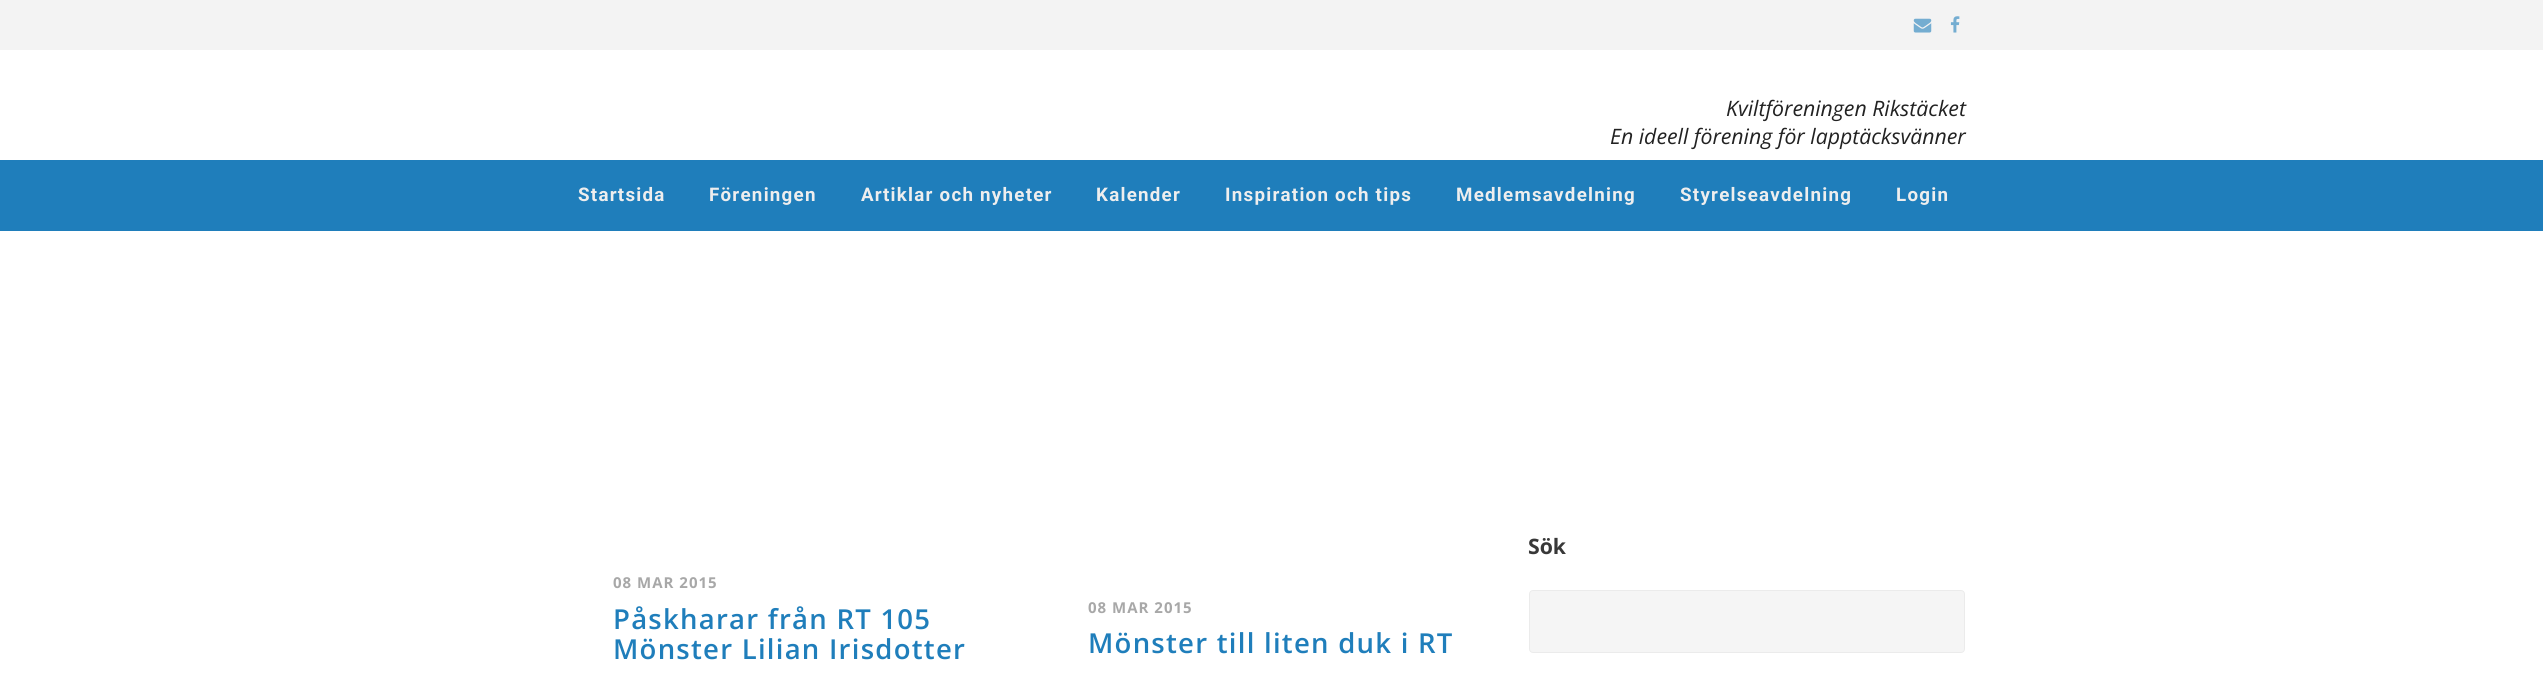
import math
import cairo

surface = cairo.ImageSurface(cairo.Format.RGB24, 2543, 676)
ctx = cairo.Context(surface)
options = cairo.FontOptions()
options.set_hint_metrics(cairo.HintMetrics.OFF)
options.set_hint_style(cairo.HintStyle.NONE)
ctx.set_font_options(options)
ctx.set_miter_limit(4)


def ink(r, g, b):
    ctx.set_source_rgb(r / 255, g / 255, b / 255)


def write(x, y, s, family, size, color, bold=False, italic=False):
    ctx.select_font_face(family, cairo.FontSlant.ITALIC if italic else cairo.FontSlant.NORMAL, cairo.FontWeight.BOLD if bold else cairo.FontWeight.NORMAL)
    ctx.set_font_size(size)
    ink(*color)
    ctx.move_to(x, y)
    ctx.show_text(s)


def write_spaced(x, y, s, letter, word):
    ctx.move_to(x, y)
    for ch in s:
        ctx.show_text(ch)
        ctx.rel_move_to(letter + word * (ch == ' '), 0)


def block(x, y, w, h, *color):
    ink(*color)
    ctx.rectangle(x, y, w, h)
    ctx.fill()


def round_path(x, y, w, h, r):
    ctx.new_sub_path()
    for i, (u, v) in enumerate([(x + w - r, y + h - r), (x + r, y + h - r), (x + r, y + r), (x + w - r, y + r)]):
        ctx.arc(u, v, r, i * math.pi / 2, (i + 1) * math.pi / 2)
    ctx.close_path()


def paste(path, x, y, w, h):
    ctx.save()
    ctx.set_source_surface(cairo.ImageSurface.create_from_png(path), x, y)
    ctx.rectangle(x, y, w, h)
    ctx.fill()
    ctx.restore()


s1 = dict(family="Open Sans", size=21.25, color=(34, 34, 34), italic=True)
s2 = dict(family="Open Sans", size=21.25, color=(56, 56, 56), bold=True)

ink(255, 255, 255)
ctx.paint()
block(0, 0, 2543, 50, 243, 243, 243)
paste("pic1.png", 1913, 18, 19, 15)
paste("pic2.png", 1950, 16, 10, 17)
write(1726, 116, "Kviltföreningen Rikstäcket", **s1)
write(1610, 144, "En ideell förening för lapptäcksvänner", **s1)
block(0, 160, 2543, 71, 31, 126, 187)
ctx.select_font_face("Roboto", cairo.FontSlant.NORMAL, cairo.FontWeight.BOLD)
ctx.set_font_size(18.75)
ink(238, 238, 238)
write_spaced(578, 201, "Startsida", 1.25, 0)
write_spaced(709, 201, "Föreningen", 1.25, 0)
write_spaced(861, 201, "Artiklar och nyheter", 1.25, 0)
write_spaced(1096, 201, "Kalender", 1.25, 0)
write_spaced(1225, 201, "Inspiration och tips", 1.25, 0)
write_spaced(1456, 201, "Medlemsavdelning", 1.25, 0)
write_spaced(1680, 201, "Styrelseavdelning", 1.25, 0)
write_spaced(1896, 201, "Login", 1.25, 0)
write(1528, 554, "Sök", **s2)
ink(245, 245, 245)
round_path(1529.5, 590.5, 435, 62, 3.5)
ctx.fill_preserve()
ink(235, 235, 235)
ctx.set_line_width(1)
ctx.stroke()
ctx.set_font_size(15)
ink(168, 168, 168)
write_spaced(613, 588, "08 MAR 2015", 1, 0)
ctx.select_font_face("Open Sans SemiBold")
ctx.set_font_size(27.5)
ink(31, 126, 187)
write_spaced(613, 629, "Påskharar från RT 105", 1.25, 0)
write_spaced(613, 659, "Mönster Lilian Irisdotter", 1.25, 0)
ctx.select_font_face("Open Sans", cairo.FontSlant.NORMAL, cairo.FontWeight.BOLD)
ctx.set_font_size(15)
ink(168, 168, 168)
write_spaced(1088, 613, "08 MAR 2015", 1, 0)
ctx.select_font_face("Open Sans SemiBold")
ctx.set_font_size(27.5)
ink(31, 126, 187)
write_spaced(1088, 653, "Mönster till liten duk i RT", 1.25, 0)
surface.write_to_png("screenshot.png")
